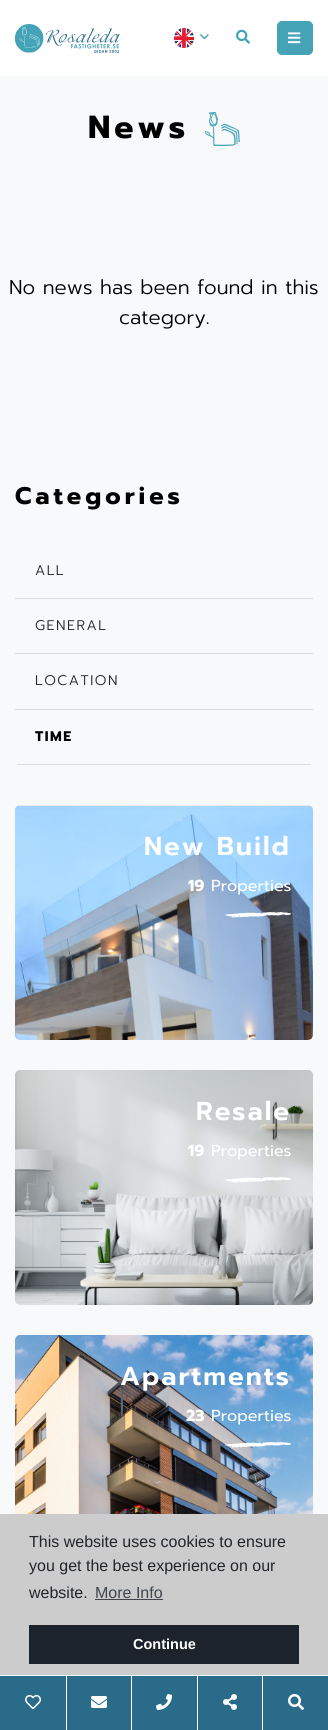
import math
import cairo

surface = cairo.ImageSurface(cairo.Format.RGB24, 328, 1730)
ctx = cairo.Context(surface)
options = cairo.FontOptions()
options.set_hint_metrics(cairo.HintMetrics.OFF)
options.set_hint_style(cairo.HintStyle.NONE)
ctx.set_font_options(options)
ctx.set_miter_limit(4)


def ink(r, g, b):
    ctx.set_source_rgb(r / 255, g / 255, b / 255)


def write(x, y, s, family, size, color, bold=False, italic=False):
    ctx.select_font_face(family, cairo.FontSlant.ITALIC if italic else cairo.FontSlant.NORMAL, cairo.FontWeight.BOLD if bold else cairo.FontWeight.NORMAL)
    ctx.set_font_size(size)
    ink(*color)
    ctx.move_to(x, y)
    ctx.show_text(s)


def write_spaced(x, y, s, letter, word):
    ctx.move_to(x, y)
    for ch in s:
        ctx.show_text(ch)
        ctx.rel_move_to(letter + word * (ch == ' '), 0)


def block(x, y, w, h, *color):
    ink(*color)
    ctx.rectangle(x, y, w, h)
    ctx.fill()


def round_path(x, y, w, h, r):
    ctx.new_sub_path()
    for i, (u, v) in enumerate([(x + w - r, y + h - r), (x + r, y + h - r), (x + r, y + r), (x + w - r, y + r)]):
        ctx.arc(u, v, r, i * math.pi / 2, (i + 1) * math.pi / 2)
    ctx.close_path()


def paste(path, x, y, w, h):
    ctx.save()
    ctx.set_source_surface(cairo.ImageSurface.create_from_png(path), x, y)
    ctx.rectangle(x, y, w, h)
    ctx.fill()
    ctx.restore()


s1 = dict(family="Prompt Light", size=20, color=(0, 0, 0))
s2 = dict(family="Prompt", size=16, color=(255, 255, 255), bold=True)
s3 = dict(family="Prompt", size=16, color=(255, 255, 255))
s4 = dict(family="Liberation Sans", size=16, color=(33, 37, 41))
s5 = dict(family="Liberation Sans", size=16, color=(63, 69, 76))
s6 = dict(family="Liberation Sans", size=14.5, color=(255, 255, 255), bold=True)

ink(255, 255, 255)
ctx.paint()
paste("pic1.png", 15, 24, 107, 29)
paste("pic2.png", 174, 28, 20, 20)
paste("pic3.png", 200, 34, 9, 6)
paste("pic4.png", 236, 29, 14, 15)
ink(69, 163, 183)
round_path(277.5, 21.5, 35, 33, 4.5)
ctx.fill_preserve()
ctx.set_line_width(1)
ctx.stroke()
paste("pic5.png", 288, 32, 13, 12)
block(0, 76, 328, 1438, 248, 249, 250)
ctx.select_font_face("Prompt", cairo.FontSlant.NORMAL, cairo.FontWeight.BOLD)
ctx.set_font_size(32)
ink(0, 0, 0)
write_spaced(88, 138, "News", 4, 0)
paste("pic6.png", 205, 112, 35, 34)
write(9, 294, "No news has been found in this", **s1)
write(119, 324, "category.", **s1)
ctx.select_font_face("Prompt", cairo.FontSlant.NORMAL, cairo.FontWeight.BOLD)
ctx.set_font_size(24)
write_spaced(15, 504, "Categories", 4, 0)
block(15, 598, 298, 1, 221, 221, 221)
ctx.select_font_face("Prompt Light")
ctx.set_font_size(14)
ink(33, 37, 41)
write_spaced(35, 575, "ALL", 1.5, 0)
block(15, 653, 298, 1, 221, 221, 221)
ink(33, 37, 41)
write_spaced(35, 630, "GENERAL", 1.5, 0)
block(15, 709, 298, 1, 221, 221, 221)
ink(33, 37, 41)
write_spaced(35, 685, "LOCATION", 1.5, 0)
block(17, 764, 294, 1, 221, 221, 221)
ctx.select_font_face("Prompt", cairo.FontSlant.NORMAL, cairo.FontWeight.BOLD)
ink(0, 0, 0)
write_spaced(35, 741, "TIME", 1.5, 0)
paste("pic7.png", 15, 805, 298, 235)
ctx.select_font_face("Prompt SemiBold")
ctx.set_font_size(26)
ink(255, 255, 255)
write_spaced(144, 855, "New Build", 2, 0)
write(188, 891, "19", **s2)
write(211, 891, "Properties", **s3)
paste("pic8.png", 225, 912, 66, 6)
paste("pic9.png", 15, 1070, 298, 235)
ctx.select_font_face("Prompt SemiBold")
ctx.set_font_size(26)
write_spaced(196, 1120, "Resale", 2, 0)
write(188, 1156, "19", **s2)
write(211, 1156, "Properties", **s3)
paste("pic10.png", 225, 1177, 66, 6)
paste("pic11.png", 15, 1335, 298, 179)
ctx.select_font_face("Prompt SemiBold")
ctx.set_font_size(26)
write_spaced(120, 1385, "Apartments", 2, 0)
write(186, 1421, "23", **s2)
write(211, 1421, "Properties", **s3)
paste("pic12.png", 225, 1442, 66, 6)
block(0, 1514, 328, 161, 204, 204, 204)
write(29, 1547, "This website uses cookies to ensure", **s4)
write(29, 1571, "you get the best experience on our", **s4)
write(29, 1598, "website.", **s4)
write(95, 1598, "More Info", **s5)
block(95, 1599, 68, 1, 63, 69, 76)
block(29, 1625, 270, 39, 28, 35, 44)
write(133, 1649, "Continue", **s6)
block(0, 1676, 328, 54, 42, 107, 138)
paste("pic13.png", 25, 1695, 16, 14)
block(66, 1676, 1, 54, 255, 255, 255)
paste("pic14.png", 91, 1696, 16, 12)
block(131, 1676, 1, 54, 255, 255, 255)
paste("pic15.png", 156, 1694, 16, 16)
block(197, 1676, 1, 54, 255, 255, 255)
paste("pic16.png", 223, 1694, 14, 16)
block(262, 1676, 1, 54, 255, 255, 255)
paste("pic17.png", 288, 1694, 16, 16)
surface.write_to_png("screenshot.png")
